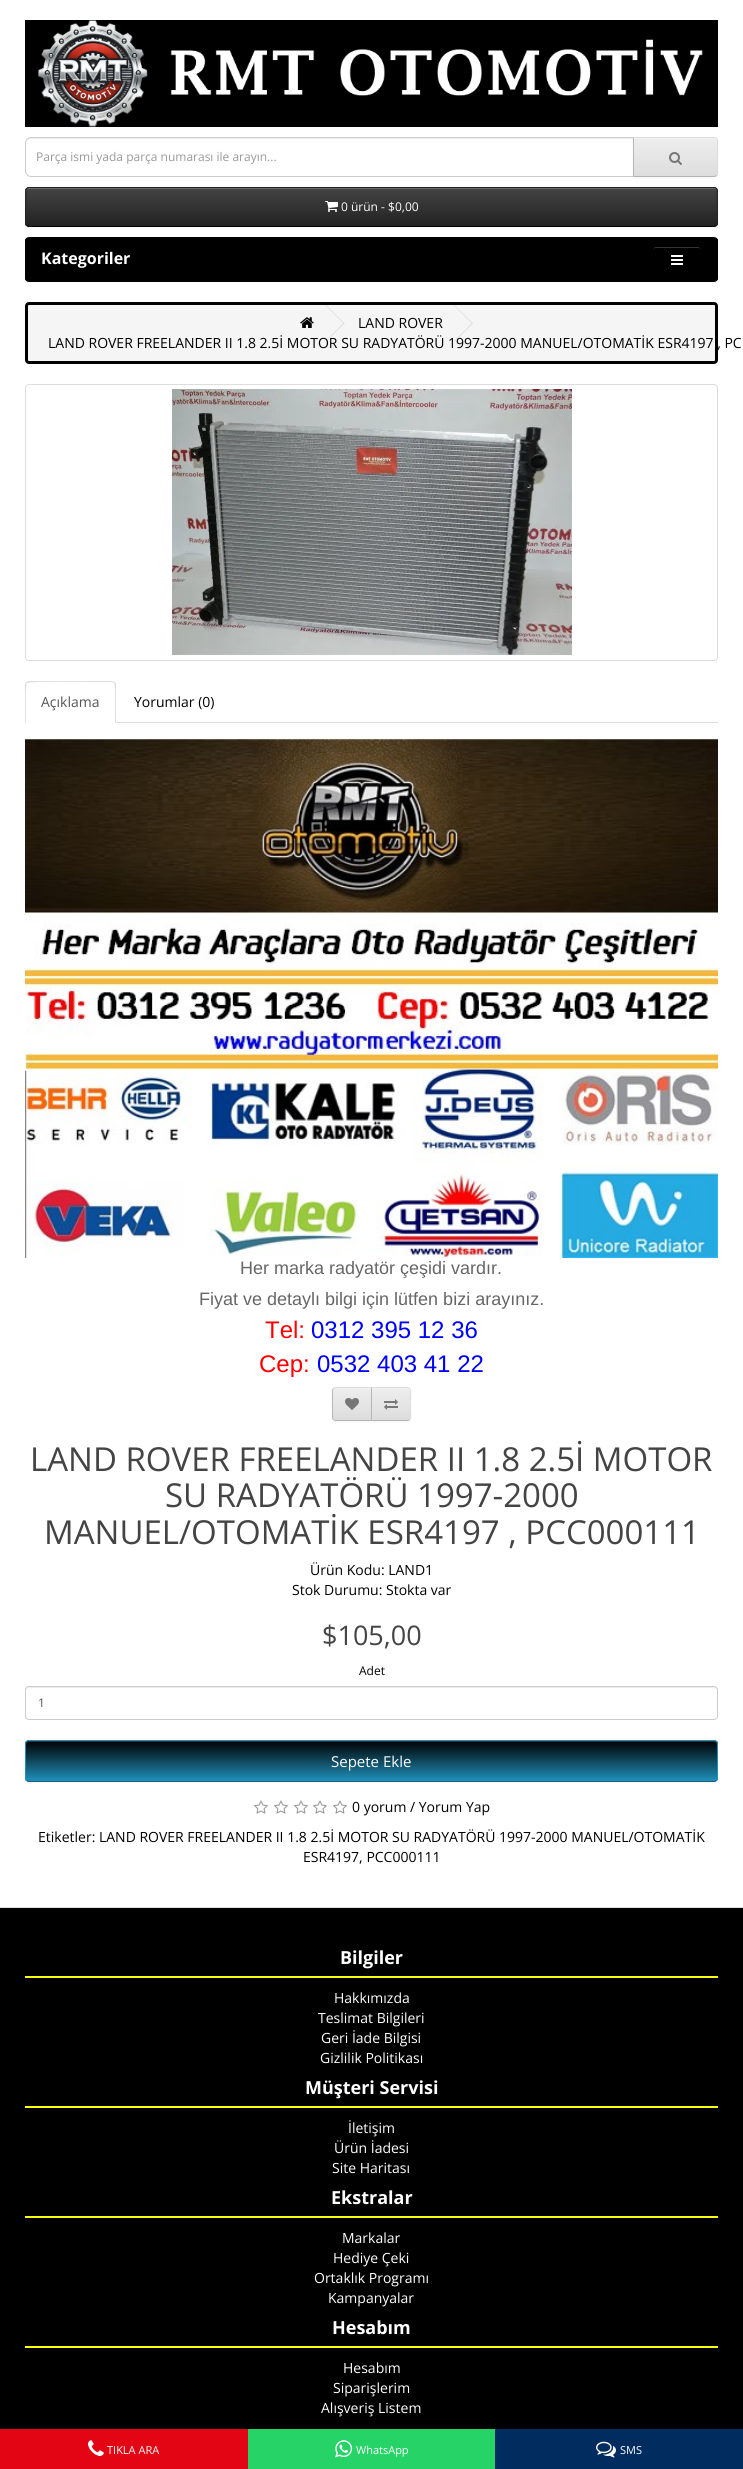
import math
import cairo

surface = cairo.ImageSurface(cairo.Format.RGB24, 743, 2469)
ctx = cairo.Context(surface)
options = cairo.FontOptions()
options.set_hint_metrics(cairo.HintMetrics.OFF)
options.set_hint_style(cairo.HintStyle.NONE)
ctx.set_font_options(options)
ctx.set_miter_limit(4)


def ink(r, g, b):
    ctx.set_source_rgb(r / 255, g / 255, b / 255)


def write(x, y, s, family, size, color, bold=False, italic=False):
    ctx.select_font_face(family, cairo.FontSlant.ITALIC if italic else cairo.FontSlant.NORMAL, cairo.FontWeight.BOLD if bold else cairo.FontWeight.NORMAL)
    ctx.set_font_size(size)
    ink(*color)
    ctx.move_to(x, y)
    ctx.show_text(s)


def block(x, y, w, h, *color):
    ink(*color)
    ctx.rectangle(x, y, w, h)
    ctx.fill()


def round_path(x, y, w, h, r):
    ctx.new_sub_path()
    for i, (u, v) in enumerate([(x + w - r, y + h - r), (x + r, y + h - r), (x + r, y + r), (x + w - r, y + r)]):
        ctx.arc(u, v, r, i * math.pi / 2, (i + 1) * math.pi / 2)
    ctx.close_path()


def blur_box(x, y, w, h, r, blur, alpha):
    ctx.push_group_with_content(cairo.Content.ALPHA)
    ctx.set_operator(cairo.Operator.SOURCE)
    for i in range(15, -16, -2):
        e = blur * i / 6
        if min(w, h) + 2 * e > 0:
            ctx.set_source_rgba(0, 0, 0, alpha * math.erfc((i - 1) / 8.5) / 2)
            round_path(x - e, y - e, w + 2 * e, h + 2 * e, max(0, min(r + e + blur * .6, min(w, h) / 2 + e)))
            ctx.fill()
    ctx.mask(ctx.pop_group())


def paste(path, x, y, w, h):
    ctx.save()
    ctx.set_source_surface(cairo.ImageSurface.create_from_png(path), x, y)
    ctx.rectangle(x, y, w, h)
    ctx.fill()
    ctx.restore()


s1 = dict(family="Open Sans", size=12, color=(153, 153, 153))
s2 = dict(family="Open Sans", size=12, color=(255, 255, 255))
s3 = dict(family="Open Sans", size=16, color=(255, 255, 255), bold=True)
s4 = dict(family="Open Sans", size=14, color=(0, 0, 0))
s5 = dict(family="Open Sans", size=14, color=(85, 85, 85))
s6 = dict(family="Liberation Sans", size=18, color=(102, 102, 102))
s7 = dict(family="Liberation Sans", size=24, color=(255, 0, 0))
s8 = dict(family="Liberation Sans", size=24, color=(0, 0, 255))
s9 = dict(family="Open Sans", size=33, color=(68, 68, 68))
s10 = dict(family="Open Sans", size=27, color=(68, 68, 68))
s11 = dict(family="Open Sans", size=12, color=(0, 0, 0))
s12 = dict(family="Open Sans", size=12, color=(85, 85, 85))
s13 = dict(family="Open Sans", size=15, color=(255, 255, 255))
s14 = dict(family="Open Sans", size=18, color=(255, 255, 255), bold=True)
s15 = dict(family="Open Sans", size=14, color=(255, 255, 255))
s16 = dict(family="Open Sans", size=11, color=(255, 255, 255))

ink(255, 255, 255)
ctx.paint()
paste("pic1.png", 25, 20, 693, 107)
ink(236, 236, 236)
ctx.new_path()
ctx.move_to(31, 139)
ctx.line_to(633, 139)
ctx.line_to(633, 138)
ctx.line_to(31, 138)
ctx.curve_to(28, 138, 26, 141, 26, 144)
ctx.curve_to(26, 141, 28, 139, 31, 139)
ctx.close_path()
ctx.fill()
ctx.new_path()
ctx.move_to(31, 137.5)
ctx.line_to(633.5, 137.5)
ctx.line_to(633.5, 176.5)
ctx.line_to(31, 176.5)
ctx.curve_to(28, 176.5, 25.5, 174, 25.5, 171)
ctx.line_to(25.5, 143)
ctx.curve_to(25.5, 140, 28, 137.5, 31, 137.5)
ctx.close_path()
ink(204, 204, 204)
ctx.set_line_width(1)
ctx.stroke()
write(36, 161, "Parça ismi yada parça numarası ile arayın...", **s1)
ink(0, 0, 0)
blur_box(633, 138, 85, 40, 4, 1, 0.05)
ink(231, 231, 231)
ctx.new_path()
ctx.move_to(633, 137)
ctx.line_to(714, 137)
ctx.curve_to(716, 137, 718, 139, 718, 141)
ctx.line_to(718, 173)
ctx.curve_to(718, 175, 716, 177, 714, 177)
ctx.line_to(633, 177)
ctx.close_path()
ctx.fill()
ctx.save()
ctx.new_path()
ctx.move_to(633, 137)
ctx.line_to(714, 137)
ctx.curve_to(716, 137, 718, 139, 718, 141)
ctx.line_to(718, 173)
ctx.curve_to(718, 175, 716, 177, 714, 177)
ctx.line_to(633, 177)
ctx.close_path()
ctx.clip()
gradient = cairo.LinearGradient(676, 138, 676, 176)
gradient.add_color_stop_rgba(0, 0.933, 0.933, 0.933, 1)
gradient.add_color_stop_rgba(1, 0.867, 0.867, 0.867, 1)
ctx.set_source(gradient)
ctx.rectangle(634, 138, 84, 38)
ctx.fill()
ctx.restore()
ink(241, 241, 241)
ctx.new_path()
ctx.move_to(634, 139)
ctx.line_to(714, 139)
ctx.curve_to(716, 139, 717, 140, 717, 142)
ctx.line_to(717, 141)
ctx.curve_to(717, 139, 716, 138, 714, 138)
ctx.line_to(634, 138)
ctx.close_path()
ctx.fill()
ink(221, 221, 221)
ctx.new_path()
ctx.move_to(633, 137)
ctx.line_to(634, 138)
ctx.line_to(715, 138)
ctx.line_to(716, 139)
ctx.line_to(717, 138)
ctx.line_to(714, 137)
ctx.close_path()
ctx.fill()
ctx.new_path()
ctx.move_to(718, 173)
ctx.line_to(718, 141)
ctx.curve_to(718, 140, 717.5, 139, 717, 138)
ctx.line_to(716, 139)
ctx.curve_to(717, 139, 717, 140, 717, 141)
ctx.line_to(717, 173)
ctx.curve_to(717, 174, 717, 175, 716, 175)
ctx.line_to(717, 176)
ctx.curve_to(717.5, 175, 718, 174, 718, 173)
ctx.close_path()
ctx.fill()
ink(179, 179, 179)
ctx.new_path()
ctx.move_to(714, 177)
ctx.line_to(717, 176)
ctx.line_to(716, 175)
ctx.line_to(715, 176)
ctx.line_to(634, 176)
ctx.line_to(633, 177)
ctx.close_path()
ctx.fill()
ink(183, 183, 183)
ctx.new_path()
ctx.move_to(633, 137)
ctx.line_to(633, 177)
ctx.line_to(634, 176)
ctx.line_to(634, 138)
ctx.close_path()
ctx.fill()
paste("pic2.png", 669, 152, 13, 13)
ink(0, 0, 0)
blur_box(25, 188, 693, 40, 4, 1, 0.05)
ink(54, 54, 54)
round_path(25, 187, 693, 40, 4)
ctx.fill()
ctx.save()
round_path(25, 187, 693, 40, 4)
ctx.clip()
gradient = cairo.LinearGradient(372, 188, 372, 226)
gradient.add_color_stop_rgba(0, 0.267, 0.267, 0.267, 1)
gradient.add_color_stop_rgba(1, 0.133, 0.133, 0.133, 1)
ctx.set_source(gradient)
ctx.rectangle(25, 188, 693, 38)
ctx.fill()
ctx.restore()
ink(105, 105, 105)
ctx.new_path()
ctx.move_to(29, 189)
ctx.line_to(714, 189)
ctx.curve_to(716, 189, 717, 190, 717, 192)
ctx.line_to(717, 191)
ctx.curve_to(717, 189, 716, 188, 714, 188)
ctx.line_to(29, 188)
ctx.curve_to(27, 188, 26, 189, 26, 191)
ctx.line_to(26, 192)
ctx.curve_to(26, 190, 27, 189, 29, 189)
ctx.close_path()
ctx.fill()
ctx.new_path()
ctx.move_to(716.5, 225.5)
ctx.line_to(714, 226.5)
ctx.line_to(29, 226.5)
ctx.line_to(26.5, 225.5)
ink(0, 0, 0)
ctx.stroke()
ctx.new_path()
ctx.move_to(26.5, 225.5)
ctx.line_to(25.5, 223.5)
ctx.line_to(26, 189.5)
ctx.curve_to(26.5, 188.5, 27.5, 187.5, 29, 187.5)
ctx.line_to(714, 187.5)
ctx.curve_to(715.5, 187.5, 716.5, 188.5, 717, 189.5)
ctx.line_to(717.5, 223.5)
ctx.line_to(716.5, 225.5)
ink(34, 34, 34)
ctx.stroke()
paste("pic3.png", 325, 201, 13, 11)
write(341, 211, "0 ürün - $0,00", **s2)
ctx.save()
round_path(25, 237, 693, 45, 4)
ctx.clip()
block(25, 238, 693, 43, 0, 0, 0)
ctx.restore()
round_path(25.5, 237.5, 692, 44, 3.5)
ink(0, 0, 0)
ctx.stroke()
write(41, 264, "Kategoriler", **s3)
ink(51, 51, 51)
ctx.new_path()
ctx.move_to(656, 248)
ctx.line_to(698, 248)
ctx.curve_to(700, 248, 701, 249, 701, 251)
ctx.curve_to(701, 245, 695, 247, 691, 247)
ctx.line_to(663, 247)
ctx.curve_to(659, 247, 653, 245, 653, 251)
ctx.curve_to(653, 249, 654, 248, 656, 248)
ctx.close_path()
ctx.fill()
round_path(652.5, 246.5, 49, 26, 3.5)
ink(0, 0, 0)
ctx.stroke()
paste("pic4.png", 671, 255, 12, 10)
ink(245, 245, 245)
round_path(26.5, 303.5, 690, 59, 2.5)
ctx.fill_preserve()
ink(0, 0, 0)
ctx.set_line_width(3)
ctx.stroke()
paste("pic5.png", 300, 317, 14, 11)
ink(221, 221, 221)
ctx.new_path()
ctx.move_to(325.5, 305.5)
ctx.line_to(326, 305)
ctx.line_to(344.5, 323.5)
ctx.line_to(344, 324)
ctx.close_path()
ctx.fill()
ctx.new_path()
ctx.move_to(325.5, 341)
ctx.line_to(344, 322.5)
ctx.line_to(344.5, 323.5)
ctx.line_to(326, 341.5)
ctx.close_path()
ctx.fill()
write(358, 328, "LAND ROVER", **s4)
ink(221, 221, 221)
ctx.new_path()
ctx.move_to(454, 305.5)
ctx.line_to(454.5, 305)
ctx.line_to(473, 323.5)
ctx.line_to(472.5, 324)
ctx.close_path()
ctx.fill()
ctx.new_path()
ctx.move_to(454, 341)
ctx.line_to(472.5, 322.5)
ctx.line_to(473, 323.5)
ctx.line_to(454.5, 341.5)
ctx.close_path()
ctx.fill()
write(48, 348, "LAND ROVER FREELANDER II 1.8 2.5İ MOTOR SU RADYATÖRÜ 1997-2000 MANUEL/OTOMATİK ESR4197 , PC", **s4)
round_path(25.5, 384.5, 692, 276, 3.5)
ink(221, 221, 221)
ctx.set_line_width(1)
ctx.stroke()
paste("pic6.png", 172, 389, 400, 267)
block(116, 722, 602, 1, 221, 221, 221)
ctx.new_path()
ctx.move_to(29, 681)
ctx.line_to(26, 682)
ctx.line_to(27, 683)
ctx.curve_to(29, 681, 91, 682, 98, 682)
ctx.line_to(112, 682)
ctx.line_to(114, 683)
ctx.line_to(115, 682)
ctx.line_to(112, 681)
ctx.close_path()
ctx.fill()
ctx.new_path()
ctx.move_to(116, 723)
ctx.line_to(116, 685)
ctx.curve_to(116, 684, 116, 683, 115, 682)
ctx.line_to(114, 683)
ctx.curve_to(116, 685, 115, 717, 115, 722)
ctx.close_path()
ctx.fill()
ctx.new_path()
ctx.move_to(25, 723)
ctx.line_to(26, 722)
ctx.curve_to(26, 717, 25, 685, 27, 683)
ctx.line_to(26, 682)
ctx.line_to(25, 685)
ctx.close_path()
ctx.fill()
write(41, 707, "Açıklama", **s5)
write(134, 707, "Yorumlar (0)", **s4)
paste("pic7.png", 25, 738, 693, 520)
write(240, 1274, "Her marka radyatör çeşidi vardır.", **s6)
write(199, 1305, "Fiyat ve detaylı bilgi için lütfen bizi arayınız.", **s6)
write(265, 1338, "Tel:", **s7)
write(311, 1338, "0312 395 12 36", **s8)
write(259, 1372, "Cep:", **s7)
write(317, 1372, "0532 403 41 22", **s8)
ink(0, 0, 0)
blur_box(332, 1388, 40, 34, 4, 1, 0.05)
ctx.save()
ctx.new_path()
ctx.move_to(336, 1387)
ctx.line_to(372, 1387)
ctx.line_to(372, 1421)
ctx.line_to(336, 1421)
ctx.curve_to(334, 1421, 332, 1419, 332, 1417)
ctx.line_to(332, 1391)
ctx.curve_to(332, 1389, 334, 1387, 336, 1387)
ctx.close_path()
ctx.clip()
gradient = cairo.LinearGradient(352, 1388, 352, 1420)
gradient.add_color_stop_rgba(0, 0.933, 0.933, 0.933, 1)
gradient.add_color_stop_rgba(1, 0.867, 0.867, 0.867, 1)
ctx.set_source(gradient)
ctx.rectangle(332, 1388, 39, 32)
ctx.fill()
ctx.restore()
ink(241, 241, 241)
ctx.new_path()
ctx.move_to(336, 1389)
ctx.line_to(371, 1389)
ctx.line_to(371, 1388)
ctx.line_to(336, 1388)
ctx.curve_to(334.5, 1388, 333, 1389.5, 333, 1391)
ctx.line_to(333, 1392)
ctx.curve_to(333, 1390, 334, 1389, 336, 1389)
ctx.close_path()
ctx.fill()
ink(221, 221, 221)
ctx.new_path()
ctx.move_to(336, 1387)
ctx.curve_to(335, 1387, 334, 1387.5, 333, 1388)
ctx.line_to(334, 1389)
ctx.curve_to(334, 1388, 335, 1388, 336, 1388)
ctx.line_to(371, 1388)
ctx.line_to(372, 1387)
ctx.close_path()
ctx.fill()
ink(179, 179, 179)
ctx.new_path()
ctx.move_to(372, 1421)
ctx.line_to(371, 1420)
ctx.line_to(336, 1420)
ctx.curve_to(335, 1420, 334, 1420, 334, 1419)
ctx.line_to(333, 1420)
ctx.curve_to(334, 1420.5, 335, 1421, 336, 1421)
ctx.close_path()
ctx.fill()
ink(183, 183, 183)
ctx.new_path()
ctx.move_to(332, 1391)
ctx.line_to(332, 1417)
ctx.curve_to(332, 1418, 332.5, 1419, 333, 1420)
ctx.line_to(334, 1419)
ctx.curve_to(333, 1419, 333, 1418, 333, 1417)
ctx.line_to(333, 1391)
ctx.curve_to(333, 1390, 333, 1389, 334, 1389)
ctx.line_to(333, 1388)
ctx.curve_to(332.5, 1389, 332, 1390, 332, 1391)
ctx.close_path()
ctx.fill()
paste("pic8.png", 345, 1398, 14, 12)
ink(0, 0, 0)
blur_box(371, 1388, 40, 34, 4, 1, 0.05)
ctx.save()
ctx.new_path()
ctx.move_to(371, 1387)
ctx.line_to(407, 1387)
ctx.curve_to(409, 1387, 411, 1389, 411, 1391)
ctx.line_to(411, 1417)
ctx.curve_to(411, 1419, 409, 1421, 407, 1421)
ctx.line_to(371, 1421)
ctx.close_path()
ctx.clip()
gradient = cairo.LinearGradient(391, 1388, 391, 1420)
gradient.add_color_stop_rgba(0, 0.933, 0.933, 0.933, 1)
gradient.add_color_stop_rgba(1, 0.867, 0.867, 0.867, 1)
ctx.set_source(gradient)
ctx.rectangle(372, 1388, 39, 32)
ctx.fill()
ctx.restore()
ink(241, 241, 241)
ctx.new_path()
ctx.move_to(372, 1389)
ctx.line_to(407, 1389)
ctx.curve_to(409, 1389, 410, 1390, 410, 1392)
ctx.line_to(410, 1391)
ctx.curve_to(410, 1389.5, 408.5, 1388, 407, 1388)
ctx.line_to(372, 1388)
ctx.close_path()
ctx.fill()
ink(221, 221, 221)
ctx.new_path()
ctx.move_to(371, 1387)
ctx.line_to(372, 1388)
ctx.line_to(407, 1388)
ctx.curve_to(408, 1388, 409, 1388, 409, 1389)
ctx.line_to(410, 1388)
ctx.curve_to(409, 1387.5, 408, 1387, 407, 1387)
ctx.close_path()
ctx.fill()
ctx.new_path()
ctx.move_to(411, 1417)
ctx.line_to(411, 1391)
ctx.curve_to(411, 1390, 410.5, 1389, 410, 1388)
ctx.line_to(409, 1389)
ctx.curve_to(410, 1389, 410, 1390, 410, 1391)
ctx.line_to(410, 1417)
ctx.curve_to(410, 1418, 410, 1419, 409, 1419)
ctx.line_to(410, 1420)
ctx.curve_to(410.5, 1419, 411, 1418, 411, 1417)
ctx.close_path()
ctx.fill()
ink(179, 179, 179)
ctx.new_path()
ctx.move_to(407, 1421)
ctx.curve_to(408, 1421, 409, 1420.5, 410, 1420)
ctx.line_to(409, 1419)
ctx.curve_to(409, 1420, 408, 1420, 407, 1420)
ctx.line_to(372, 1420)
ctx.line_to(371, 1421)
ctx.close_path()
ctx.fill()
ink(183, 183, 183)
ctx.new_path()
ctx.move_to(371, 1387)
ctx.line_to(371, 1421)
ctx.line_to(372, 1420)
ctx.line_to(372, 1388)
ctx.close_path()
ctx.fill()
paste("pic9.png", 384, 1399, 14, 11)
write(30, 1471, "LAND ROVER FREELANDER II 1.8 2.5İ MOTOR", **s9)
write(165, 1507, "SU RADYATÖRÜ 1997-2000", **s9)
write(44, 1544, "MANUEL/OTOMATİK ESR4197 , PCC000111", **s9)
write(310, 1575, "Ürün Kodu: LAND1", **s4)
write(292, 1595, "Stok Durumu: Stokta var", **s4)
write(322, 1645, "$105,00", **s10)
write(359, 1675, "Adet", **s11)
ink(236, 236, 236)
ctx.new_path()
ctx.move_to(29, 1688)
ctx.line_to(714, 1688)
ctx.curve_to(716, 1688, 717, 1689, 717, 1691)
ctx.line_to(717, 1690)
ctx.curve_to(717, 1688, 716, 1687, 714, 1687)
ctx.line_to(29, 1687)
ctx.curve_to(27, 1687, 26, 1688, 26, 1690)
ctx.line_to(26, 1691)
ctx.curve_to(26, 1689, 27, 1688, 29, 1688)
ctx.close_path()
ctx.fill()
round_path(25.5, 1686.5, 692, 33, 3.5)
ink(204, 204, 204)
ctx.stroke()
write(38, 1707, "1", **s12)
ink(0, 0, 0)
blur_box(25, 1741, 693, 42, 4, 1, 0.05)
ink(34, 154, 200)
round_path(25, 1740, 693, 42, 4)
ctx.fill()
ctx.save()
round_path(25, 1740, 693, 42, 4)
ctx.clip()
gradient = cairo.LinearGradient(372, 1741, 372, 1781)
gradient.add_color_stop_rgba(0, 0, 0, 0, 1)
gradient.add_color_stop_rgba(1, 0.122, 0.565, 0.733, 1)
ctx.set_source(gradient)
ctx.rectangle(25, 1741, 693, 40)
ctx.fill()
ctx.restore()
ctx.set_source_rgba(1, 1, 1, 0.2)
ctx.new_path()
ctx.move_to(29, 1742)
ctx.line_to(714, 1742)
ctx.curve_to(716, 1742, 717, 1743, 717, 1745)
ctx.line_to(717, 1744)
ctx.curve_to(717, 1742, 716, 1741, 714, 1741)
ctx.line_to(29, 1741)
ctx.curve_to(27, 1741, 26, 1742, 26, 1744)
ctx.line_to(26, 1745)
ctx.curve_to(26, 1743, 27, 1742, 29, 1742)
ctx.close_path()
ctx.fill()
ctx.new_path()
ctx.move_to(716.5, 1780.5)
ctx.line_to(714, 1781.5)
ctx.line_to(29, 1781.5)
ctx.line_to(26.5, 1780.5)
ink(20, 94, 122)
ctx.stroke()
ctx.new_path()
ctx.move_to(26.5, 1780.5)
ctx.curve_to(26, 1780, 25.5, 1779, 25.5, 1778)
ctx.line_to(25.5, 1744)
ctx.curve_to(25.5, 1743, 26, 1742, 26.5, 1741.5)
ctx.curve_to(27, 1741, 28, 1740.5, 29, 1740.5)
ctx.line_to(714, 1740.5)
ctx.curve_to(715, 1740.5, 716, 1741, 716.5, 1741.5)
ctx.curve_to(717, 1742, 717.5, 1743, 717.5, 1744)
ctx.line_to(717.5, 1778)
ctx.curve_to(717.5, 1779, 717, 1780, 716.5, 1780.5)
ink(31, 144, 187)
ctx.stroke()
write(331, 1767, "Sepete Ekle", **s13)
paste("pic10.png", 254, 1800, 14, 14)
paste("pic10.png", 274, 1800, 14, 14)
paste("pic10.png", 294, 1800, 14, 14)
paste("pic10.png", 313, 1800, 14, 14)
paste("pic10.png", 333, 1800, 14, 14)
write(352, 1812, "0 yorum / Yorum Yap", **s4)
write(38, 1842, "Etiketler: LAND ROVER FREELANDER II 1.8 2.5İ MOTOR SU RADYATÖRÜ 1997-2000 MANUEL/OTOMATİK", **s4)
write(303, 1862, "ESR4197, PCC000111", **s4)
block(0, 1908, 743, 521, 0, 0, 0)
block(0, 1907, 743, 1, 221, 221, 221)
block(25, 1976, 693, 2, 247, 255, 20)
write(340, 1964, "Bilgiler", **s14)
write(334, 2003, "Hakkımızda", **s15)
write(318, 2023, "Teslimat Bilgileri", **s15)
write(321, 2043, "Geri İade Bilgisi", **s15)
write(320, 2063, "Gizlilik Politikası", **s15)
block(25, 2106, 693, 2, 247, 255, 20)
write(305, 2094, "Müşteri Servisi", **s14)
write(348, 2133, "İletişim", **s15)
write(334, 2153, "Ürün İadesi", **s15)
write(332, 2173, "Site Haritası", **s15)
block(25, 2216, 693, 2, 247, 255, 20)
write(331, 2204, "Ekstralar", **s14)
write(342, 2243, "Markalar", **s15)
write(333, 2263, "Hediye Çeki", **s15)
write(314, 2283, "Ortaklık Programı", **s15)
write(328, 2303, "Kampanyalar", **s15)
block(25, 2346, 693, 2, 247, 255, 20)
write(332, 2334, "Hesabım", **s14)
write(343, 2373, "Hesabım", **s15)
write(333, 2393, "Siparişlerim", **s15)
write(321, 2413, "Alışveriş Listem", **s15)
block(0, 2429, 248, 40, 227, 5, 19)
paste("pic11.png", 88, 2440, 16, 16)
write(107, 2454, "TIKLA ARA", **s16)
block(248, 2429, 247, 40, 37, 211, 102)
paste("pic12.png", 335, 2440, 18, 18)
write(356, 2454, "WhatsApp", **s16)
block(495, 2429, 248, 40, 0, 44, 95)
paste("pic13.png", 596, 2441, 20, 17)
write(620, 2454, "SMS", **s16)
surface.write_to_png("screenshot.png")
